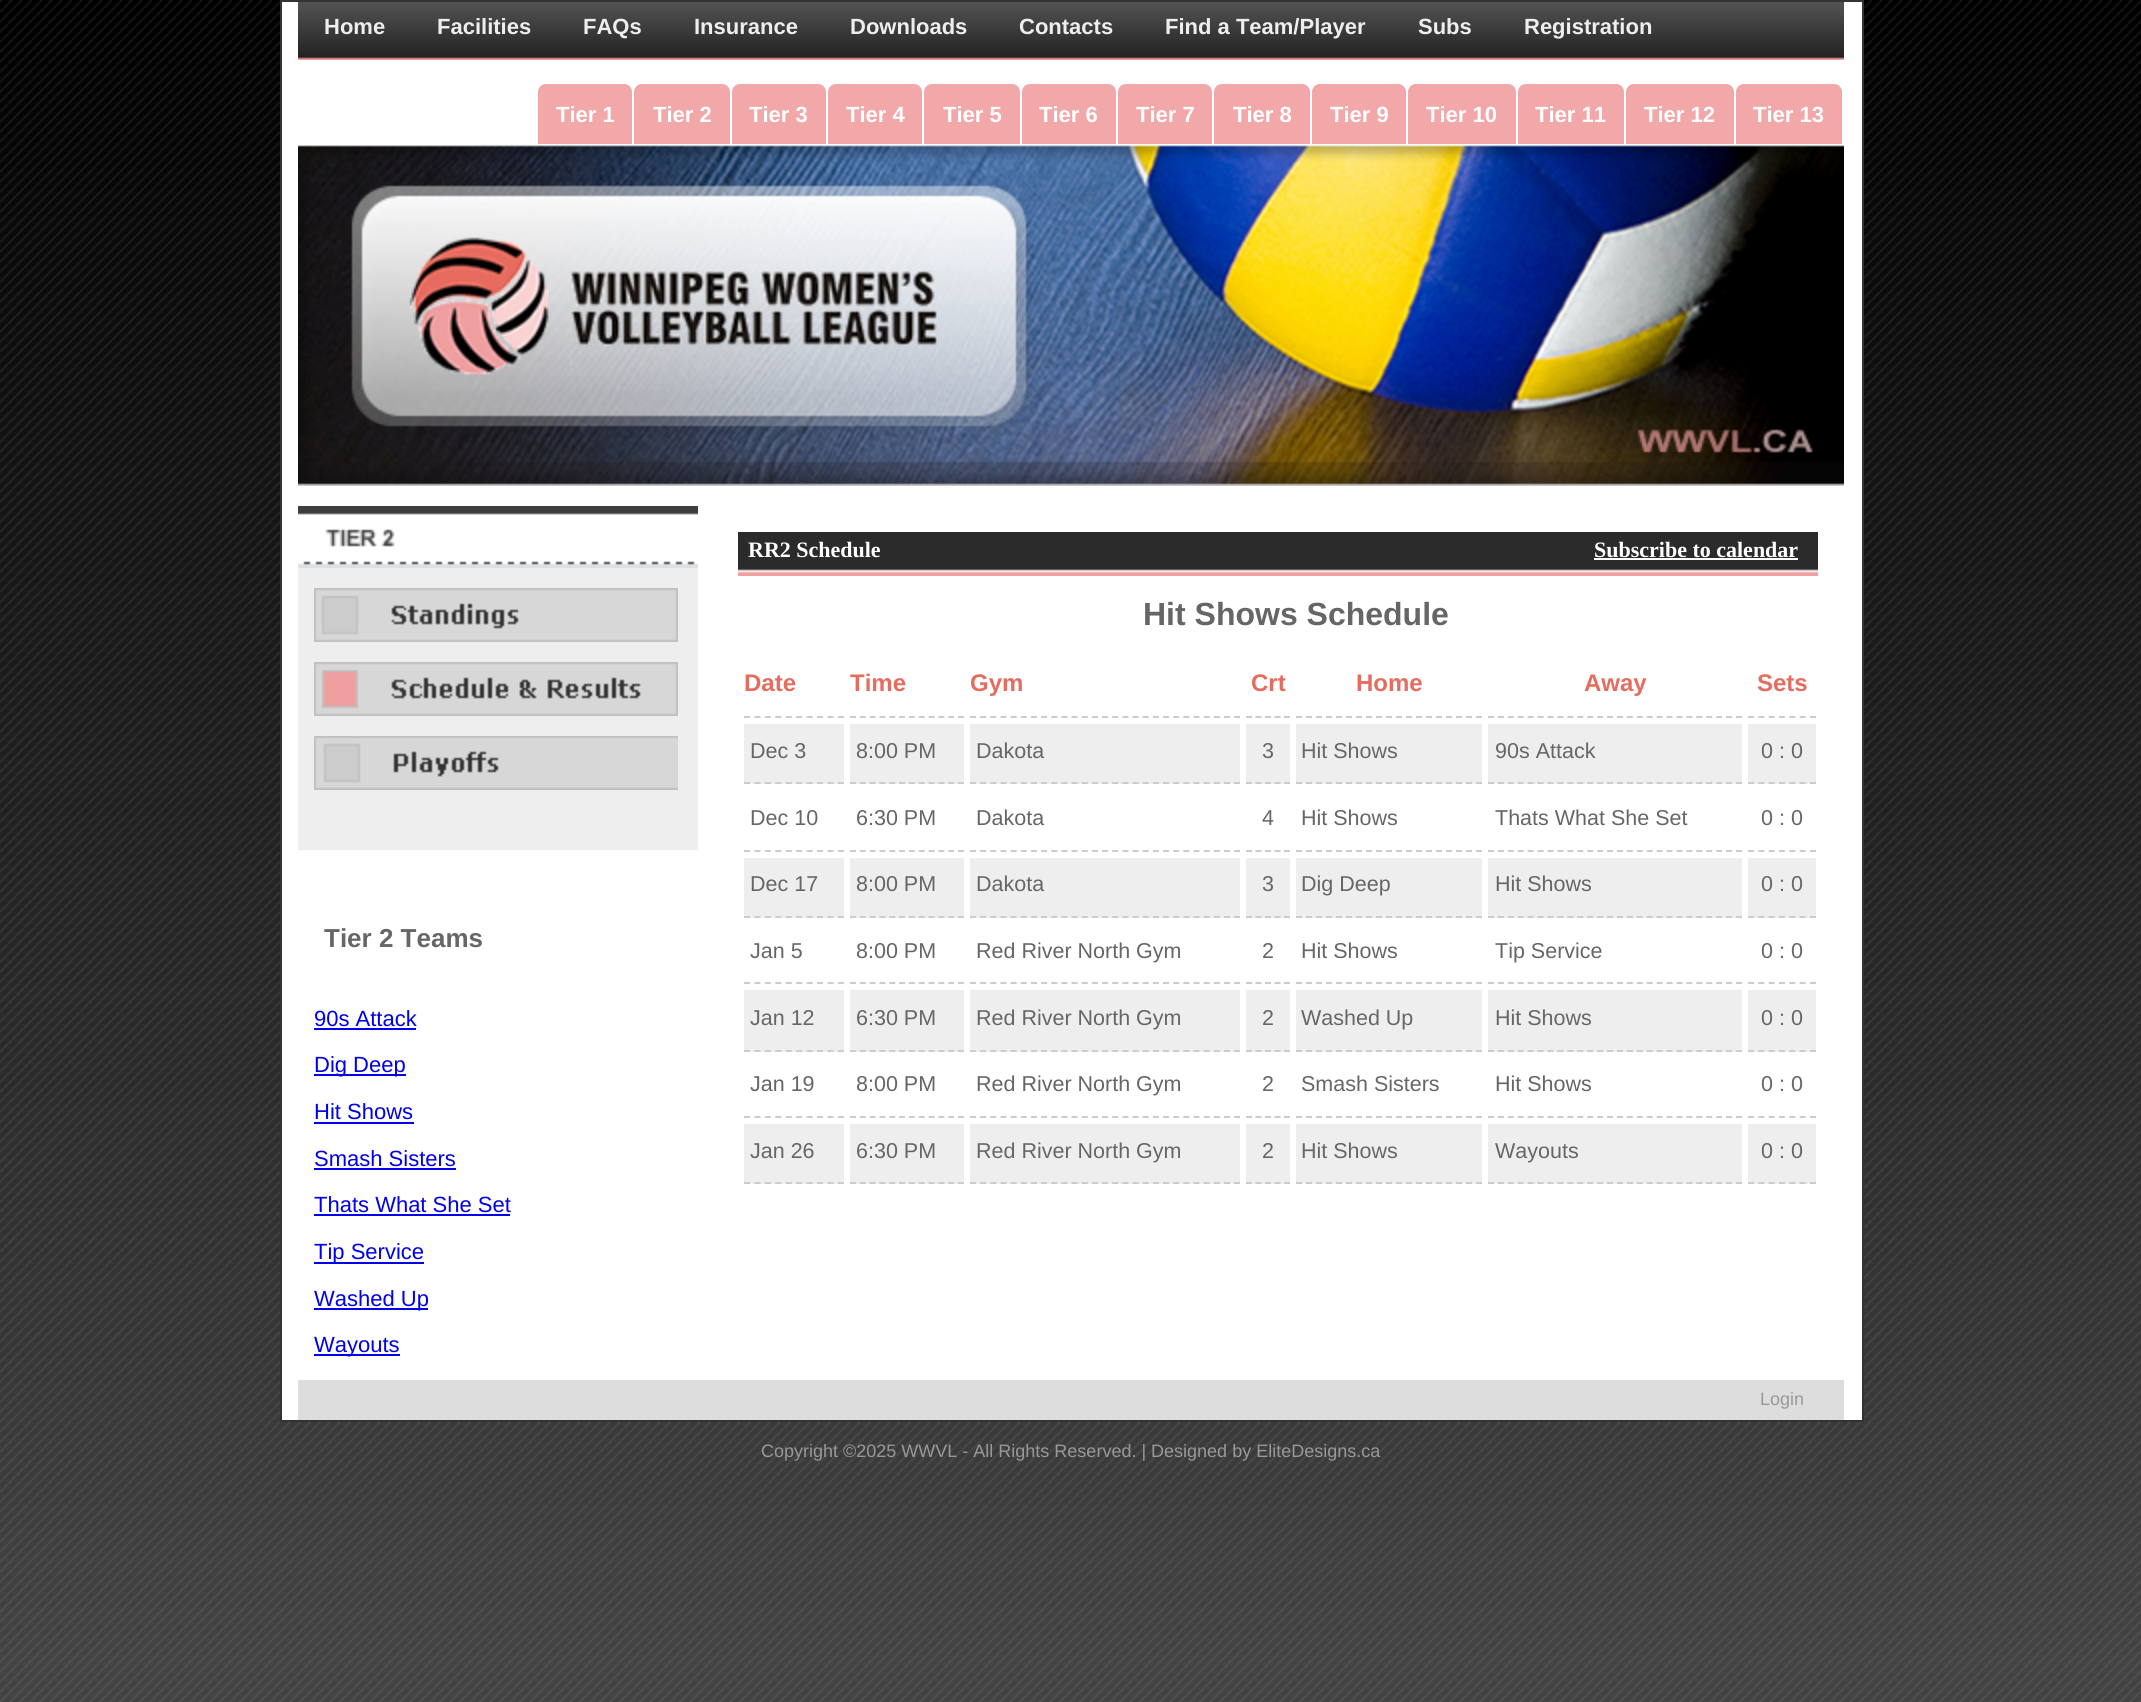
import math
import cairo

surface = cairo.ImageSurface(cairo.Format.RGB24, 2141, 1702)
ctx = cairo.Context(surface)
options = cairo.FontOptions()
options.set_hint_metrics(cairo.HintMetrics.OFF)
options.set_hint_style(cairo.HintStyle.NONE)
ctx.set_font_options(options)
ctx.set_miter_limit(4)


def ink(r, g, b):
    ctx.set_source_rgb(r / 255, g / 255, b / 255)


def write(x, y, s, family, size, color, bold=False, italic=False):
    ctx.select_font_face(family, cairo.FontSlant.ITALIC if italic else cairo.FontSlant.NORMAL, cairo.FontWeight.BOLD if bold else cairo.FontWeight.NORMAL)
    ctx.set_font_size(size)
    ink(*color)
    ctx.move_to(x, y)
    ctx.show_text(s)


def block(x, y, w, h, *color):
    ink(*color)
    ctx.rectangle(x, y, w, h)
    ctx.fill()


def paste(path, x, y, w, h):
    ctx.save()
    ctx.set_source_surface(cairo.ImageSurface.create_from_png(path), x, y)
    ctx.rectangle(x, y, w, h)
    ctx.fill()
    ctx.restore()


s1 = dict(family="Liberation Sans", size=22, color=(238, 238, 238), bold=True)
s2 = dict(family="Liberation Sans", size=22, color=(255, 255, 255), bold=True)
s3 = dict(family="Liberation Sans", size=26, color=(102, 102, 102), bold=True)
s4 = dict(family="Liberation Sans", size=22, color=(0, 0, 238))
s5 = dict(family="Liberation Serif", size=22, color=(255, 255, 255), bold=True)
s6 = dict(family="Liberation Sans", size=32, color=(102, 102, 102), bold=True)
s7 = dict(family="Liberation Sans", size=24, color=(230, 108, 95), bold=True)
s8 = dict(family="Liberation Sans", size=21.5, color=(102, 102, 102))
s9 = dict(family="Liberation Sans", size=18, color=(153, 153, 153))

ink(255, 255, 255)
ctx.paint()
paste("pic1.png", 0, 0, 2141, 1702)
ink(255, 255, 255)
ctx.rectangle(281, 1, 1582, 1420)
ctx.fill_preserve()
ink(51, 51, 51)
ctx.stroke()
paste("pic2.png", 298, 2, 1546, 58)
write(324, 34, "Home", **s1)
write(437, 34, "Facilities", **s1)
write(583, 34, "FAQs", **s1)
write(694, 34, "Insurance", **s1)
write(850, 34, "Downloads", **s1)
write(1019, 34, "Contacts", **s1)
write(1165, 34, "Find a Team/Player", **s1)
write(1418, 34, "Subs", **s1)
write(1524, 34, "Registration", **s1)
ink(242, 168, 169)
ctx.new_path()
ctx.move_to(546, 84)
ctx.line_to(624, 84)
ctx.curve_to(628.5, 84, 632, 87.5, 632, 92)
ctx.line_to(632, 144)
ctx.line_to(538, 144)
ctx.line_to(538, 92)
ctx.curve_to(538, 87.5, 541.5, 84, 546, 84)
ctx.close_path()
ctx.fill()
write(556, 122, "Tier 1", **s2)
ink(242, 168, 169)
ctx.new_path()
ctx.move_to(642, 84)
ctx.line_to(722, 84)
ctx.curve_to(726.5, 84, 730, 87.5, 730, 92)
ctx.line_to(730, 144)
ctx.line_to(634, 144)
ctx.line_to(634, 92)
ctx.curve_to(634, 87.5, 637.5, 84, 642, 84)
ctx.close_path()
ctx.fill()
write(653, 122, "Tier 2", **s2)
ink(242, 168, 169)
ctx.new_path()
ctx.move_to(740, 84)
ctx.line_to(818, 84)
ctx.curve_to(822.5, 84, 826, 87.5, 826, 92)
ctx.line_to(826, 144)
ctx.line_to(732, 144)
ctx.line_to(732, 92)
ctx.curve_to(732, 87.5, 735.5, 84, 740, 84)
ctx.close_path()
ctx.fill()
write(749, 122, "Tier 3", **s2)
ink(242, 168, 169)
ctx.new_path()
ctx.move_to(836, 84)
ctx.line_to(914, 84)
ctx.curve_to(918.5, 84, 922, 87.5, 922, 92)
ctx.line_to(922, 144)
ctx.line_to(828, 144)
ctx.line_to(828, 92)
ctx.curve_to(828, 87.5, 831.5, 84, 836, 84)
ctx.close_path()
ctx.fill()
write(846, 122, "Tier 4", **s2)
ink(242, 168, 169)
ctx.new_path()
ctx.move_to(932, 84)
ctx.line_to(1012, 84)
ctx.curve_to(1016.5, 84, 1020, 87.5, 1020, 92)
ctx.line_to(1020, 144)
ctx.line_to(924, 144)
ctx.line_to(924, 92)
ctx.curve_to(924, 87.5, 927.5, 84, 932, 84)
ctx.close_path()
ctx.fill()
write(943, 122, "Tier 5", **s2)
ink(242, 168, 169)
ctx.new_path()
ctx.move_to(1030, 84)
ctx.line_to(1108, 84)
ctx.curve_to(1112.5, 84, 1116, 87.5, 1116, 92)
ctx.line_to(1116, 144)
ctx.line_to(1022, 144)
ctx.line_to(1022, 92)
ctx.curve_to(1022, 87.5, 1025.5, 84, 1030, 84)
ctx.close_path()
ctx.fill()
write(1039, 122, "Tier 6", **s2)
ink(242, 168, 169)
ctx.new_path()
ctx.move_to(1126, 84)
ctx.line_to(1204, 84)
ctx.curve_to(1208.5, 84, 1212, 87.5, 1212, 92)
ctx.line_to(1212, 144)
ctx.line_to(1118, 144)
ctx.line_to(1118, 92)
ctx.curve_to(1118, 87.5, 1121.5, 84, 1126, 84)
ctx.close_path()
ctx.fill()
write(1136, 122, "Tier 7", **s2)
ink(242, 168, 169)
ctx.new_path()
ctx.move_to(1222, 84)
ctx.line_to(1302, 84)
ctx.curve_to(1306.5, 84, 1310, 87.5, 1310, 92)
ctx.line_to(1310, 144)
ctx.line_to(1214, 144)
ctx.line_to(1214, 92)
ctx.curve_to(1214, 87.5, 1217.5, 84, 1222, 84)
ctx.close_path()
ctx.fill()
write(1233, 122, "Tier 8", **s2)
ink(242, 168, 169)
ctx.new_path()
ctx.move_to(1320, 84)
ctx.line_to(1398, 84)
ctx.curve_to(1402.5, 84, 1406, 87.5, 1406, 92)
ctx.line_to(1406, 144)
ctx.line_to(1312, 144)
ctx.line_to(1312, 92)
ctx.curve_to(1312, 87.5, 1315.5, 84, 1320, 84)
ctx.close_path()
ctx.fill()
write(1330, 122, "Tier 9", **s2)
ink(242, 168, 169)
ctx.new_path()
ctx.move_to(1416, 84)
ctx.line_to(1508, 84)
ctx.curve_to(1512.5, 84, 1516, 87.5, 1516, 92)
ctx.line_to(1516, 144)
ctx.line_to(1408, 144)
ctx.line_to(1408, 92)
ctx.curve_to(1408, 87.5, 1411.5, 84, 1416, 84)
ctx.close_path()
ctx.fill()
write(1426, 122, "Tier 10", **s2)
ink(242, 168, 169)
ctx.new_path()
ctx.move_to(1526, 84)
ctx.line_to(1616, 84)
ctx.curve_to(1620.5, 84, 1624, 87.5, 1624, 92)
ctx.line_to(1624, 144)
ctx.line_to(1518, 144)
ctx.line_to(1518, 92)
ctx.curve_to(1518, 87.5, 1521.5, 84, 1526, 84)
ctx.close_path()
ctx.fill()
write(1535, 122, "Tier 11", **s2)
ink(242, 168, 169)
ctx.new_path()
ctx.move_to(1634, 84)
ctx.line_to(1726, 84)
ctx.curve_to(1730.5, 84, 1734, 87.5, 1734, 92)
ctx.line_to(1734, 144)
ctx.line_to(1626, 144)
ctx.line_to(1626, 92)
ctx.curve_to(1626, 87.5, 1629.5, 84, 1634, 84)
ctx.close_path()
ctx.fill()
write(1644, 122, "Tier 12", **s2)
ink(242, 168, 169)
ctx.new_path()
ctx.move_to(1744, 84)
ctx.line_to(1834, 84)
ctx.curve_to(1838.5, 84, 1842, 87.5, 1842, 92)
ctx.line_to(1842, 144)
ctx.line_to(1736, 144)
ctx.line_to(1736, 92)
ctx.curve_to(1736, 87.5, 1739.5, 84, 1744, 84)
ctx.close_path()
ctx.fill()
write(1753, 122, "Tier 13", **s2)
paste("pic3.png", 298, 144, 1546, 342)
block(298, 568, 400, 282, 238, 238, 238)
paste("pic4.png", 298, 506, 400, 62)
paste("pic5.png", 314, 588, 364, 54)
paste("pic6.png", 314, 662, 364, 54)
paste("pic7.png", 314, 736, 364, 54)
write(324, 947, "Tier 2 Teams", **s3)
write(314, 1026, "90s Attack", **s4)
block(314, 1028, 102, 2, 0, 0, 238)
block(314, 1074, 92, 2, 0, 0, 238)
write(314, 1072, "Dig Deep", **s4)
write(314, 1119, "Hit Shows", **s4)
block(314, 1122, 100, 2, 0, 0, 238)
write(314, 1166, "Smash Sisters", **s4)
block(314, 1168, 142, 2, 0, 0, 238)
write(314, 1212, "Thats What She Set", **s4)
block(314, 1214, 196, 2, 0, 0, 238)
block(314, 1262, 110, 2, 0, 0, 238)
write(314, 1259, "Tip Service", **s4)
block(314, 1308, 114, 2, 0, 0, 238)
write(314, 1306, "Washed Up", **s4)
block(314, 1354, 86, 2, 0, 0, 238)
write(314, 1352, "Wayouts", **s4)
paste("pic8.png", 738, 532, 1080, 44)
write(748, 557, "RR2 Schedule", **s5)
write(1594, 557, "Subscribe to calendar", **s5)
block(1594, 558, 204, 2, 255, 255, 255)
write(1143, 625, "Hit Shows Schedule", **s6)
ctx.new_path()
ctx.move_to(744, 717)
ctx.line_to(844, 717)
ink(204, 204, 204)
ctx.set_dash([6, 4.44])
ctx.stroke()
write(744, 691, "Date", **s7)
ctx.new_path()
ctx.move_to(850, 717)
ctx.line_to(964, 717)
ink(204, 204, 204)
ctx.set_dash([6, 3.82])
ctx.stroke()
write(850, 691, "Time", **s7)
ctx.new_path()
ctx.move_to(970, 717)
ctx.line_to(1240, 717)
ink(204, 204, 204)
ctx.set_dash([6, 4.16])
ctx.stroke()
write(970, 691, "Gym", **s7)
ctx.new_path()
ctx.move_to(1246, 717)
ctx.line_to(1290, 717)
ink(204, 204, 204)
ctx.set_dash([6, 3.5])
ctx.stroke()
write(1251, 691, "Crt", **s7)
ctx.new_path()
ctx.move_to(1296, 717)
ctx.line_to(1482, 717)
ink(204, 204, 204)
ctx.set_dash([6, 4])
ctx.stroke()
write(1356, 691, "Home", **s7)
ctx.new_path()
ctx.move_to(1488, 717)
ctx.line_to(1742, 717)
ink(204, 204, 204)
ctx.set_dash([6, 3.92])
ctx.stroke()
write(1584, 691, "Away", **s7)
ctx.new_path()
ctx.move_to(1748, 717)
ctx.line_to(1816, 717)
ink(204, 204, 204)
ctx.set_dash([6, 4.34])
ctx.stroke()
write(1757, 691, "Sets", **s7)
block(744, 724, 100, 60, 238, 238, 238)
ctx.new_path()
ctx.move_to(744, 783)
ctx.line_to(844, 783)
ink(204, 204, 204)
ctx.set_dash([6, 4.44])
ctx.stroke()
write(750, 758, "Dec 3", **s8)
block(850, 724, 114, 60, 238, 238, 238)
ctx.new_path()
ctx.move_to(850, 783)
ctx.line_to(964, 783)
ink(204, 204, 204)
ctx.set_dash([6, 3.82])
ctx.stroke()
write(856, 758, "8:00 PM", **s8)
block(970, 724, 270, 60, 238, 238, 238)
ctx.new_path()
ctx.move_to(970, 783)
ctx.line_to(1240, 783)
ink(204, 204, 204)
ctx.set_dash([6, 4.16])
ctx.stroke()
write(976, 758, "Dakota", **s8)
block(1246, 724, 44, 60, 238, 238, 238)
ctx.new_path()
ctx.move_to(1246, 783)
ctx.line_to(1290, 783)
ink(204, 204, 204)
ctx.set_dash([6, 3.5])
ctx.stroke()
write(1262, 758, "3", **s8)
block(1296, 724, 186, 60, 238, 238, 238)
ctx.new_path()
ctx.move_to(1296, 783)
ctx.line_to(1482, 783)
ink(204, 204, 204)
ctx.set_dash([6, 4])
ctx.stroke()
write(1301, 758, "Hit Shows", **s8)
block(1488, 724, 254, 60, 238, 238, 238)
ctx.new_path()
ctx.move_to(1488, 783)
ctx.line_to(1742, 783)
ink(204, 204, 204)
ctx.set_dash([6, 3.92])
ctx.stroke()
write(1495, 758, "90s Attack", **s8)
block(1748, 724, 68, 60, 238, 238, 238)
ctx.new_path()
ctx.move_to(1748, 783)
ctx.line_to(1816, 783)
ink(204, 204, 204)
ctx.set_dash([6, 4.34])
ctx.stroke()
write(1761, 758, "0 : 0", **s8)
ctx.new_path()
ctx.move_to(744, 851)
ctx.line_to(844, 851)
ink(204, 204, 204)
ctx.set_dash([6, 4.44])
ctx.stroke()
write(750, 825, "Dec 10", **s8)
ctx.new_path()
ctx.move_to(850, 851)
ctx.line_to(964, 851)
ink(204, 204, 204)
ctx.set_dash([6, 3.82])
ctx.stroke()
write(856, 825, "6:30 PM", **s8)
ctx.new_path()
ctx.move_to(970, 851)
ctx.line_to(1240, 851)
ink(204, 204, 204)
ctx.set_dash([6, 4.16])
ctx.stroke()
write(976, 825, "Dakota", **s8)
ctx.new_path()
ctx.move_to(1246, 851)
ctx.line_to(1290, 851)
ink(204, 204, 204)
ctx.set_dash([6, 3.5])
ctx.stroke()
write(1262, 825, "4", **s8)
ctx.new_path()
ctx.move_to(1296, 851)
ctx.line_to(1482, 851)
ink(204, 204, 204)
ctx.set_dash([6, 4])
ctx.stroke()
write(1301, 825, "Hit Shows", **s8)
ctx.new_path()
ctx.move_to(1488, 851)
ctx.line_to(1742, 851)
ink(204, 204, 204)
ctx.set_dash([6, 3.92])
ctx.stroke()
write(1495, 825, "Thats What She Set", **s8)
ctx.new_path()
ctx.move_to(1748, 851)
ctx.line_to(1816, 851)
ink(204, 204, 204)
ctx.set_dash([6, 4.34])
ctx.stroke()
write(1761, 825, "0 : 0", **s8)
block(744, 858, 100, 60, 238, 238, 238)
ctx.new_path()
ctx.move_to(744, 917)
ctx.line_to(844, 917)
ink(204, 204, 204)
ctx.set_dash([6, 4.44])
ctx.stroke()
write(750, 891, "Dec 17", **s8)
block(850, 858, 114, 60, 238, 238, 238)
ctx.new_path()
ctx.move_to(850, 917)
ctx.line_to(964, 917)
ink(204, 204, 204)
ctx.set_dash([6, 3.82])
ctx.stroke()
write(856, 891, "8:00 PM", **s8)
block(970, 858, 270, 60, 238, 238, 238)
ctx.new_path()
ctx.move_to(970, 917)
ctx.line_to(1240, 917)
ink(204, 204, 204)
ctx.set_dash([6, 4.16])
ctx.stroke()
write(976, 891, "Dakota", **s8)
block(1246, 858, 44, 60, 238, 238, 238)
ctx.new_path()
ctx.move_to(1246, 917)
ctx.line_to(1290, 917)
ink(204, 204, 204)
ctx.set_dash([6, 3.5])
ctx.stroke()
write(1262, 891, "3", **s8)
block(1296, 858, 186, 60, 238, 238, 238)
ctx.new_path()
ctx.move_to(1296, 917)
ctx.line_to(1482, 917)
ink(204, 204, 204)
ctx.set_dash([6, 4])
ctx.stroke()
write(1301, 891, "Dig Deep", **s8)
block(1488, 858, 254, 60, 238, 238, 238)
ctx.new_path()
ctx.move_to(1488, 917)
ctx.line_to(1742, 917)
ink(204, 204, 204)
ctx.set_dash([6, 3.92])
ctx.stroke()
write(1495, 891, "Hit Shows", **s8)
block(1748, 858, 68, 60, 238, 238, 238)
ctx.new_path()
ctx.move_to(1748, 917)
ctx.line_to(1816, 917)
ink(204, 204, 204)
ctx.set_dash([6, 4.34])
ctx.stroke()
write(1761, 891, "0 : 0", **s8)
ctx.new_path()
ctx.move_to(744, 983)
ctx.line_to(844, 983)
ink(204, 204, 204)
ctx.set_dash([6, 4.44])
ctx.stroke()
write(750, 958, "Jan 5", **s8)
ctx.new_path()
ctx.move_to(850, 983)
ctx.line_to(964, 983)
ink(204, 204, 204)
ctx.set_dash([6, 3.82])
ctx.stroke()
write(856, 958, "8:00 PM", **s8)
ctx.new_path()
ctx.move_to(970, 983)
ctx.line_to(1240, 983)
ink(204, 204, 204)
ctx.set_dash([6, 4.16])
ctx.stroke()
write(976, 958, "Red River North Gym", **s8)
ctx.new_path()
ctx.move_to(1246, 983)
ctx.line_to(1290, 983)
ink(204, 204, 204)
ctx.set_dash([6, 3.5])
ctx.stroke()
write(1262, 958, "2", **s8)
ctx.new_path()
ctx.move_to(1296, 983)
ctx.line_to(1482, 983)
ink(204, 204, 204)
ctx.set_dash([6, 4])
ctx.stroke()
write(1301, 958, "Hit Shows", **s8)
ctx.new_path()
ctx.move_to(1488, 983)
ctx.line_to(1742, 983)
ink(204, 204, 204)
ctx.set_dash([6, 3.92])
ctx.stroke()
write(1495, 958, "Tip Service", **s8)
ctx.new_path()
ctx.move_to(1748, 983)
ctx.line_to(1816, 983)
ink(204, 204, 204)
ctx.set_dash([6, 4.34])
ctx.stroke()
write(1761, 958, "0 : 0", **s8)
block(744, 990, 100, 62, 238, 238, 238)
ctx.new_path()
ctx.move_to(744, 1051)
ctx.line_to(844, 1051)
ink(204, 204, 204)
ctx.set_dash([6, 4.44])
ctx.stroke()
write(750, 1025, "Jan 12", **s8)
block(850, 990, 114, 62, 238, 238, 238)
ctx.new_path()
ctx.move_to(850, 1051)
ctx.line_to(964, 1051)
ink(204, 204, 204)
ctx.set_dash([6, 3.82])
ctx.stroke()
write(856, 1025, "6:30 PM", **s8)
block(970, 990, 270, 62, 238, 238, 238)
ctx.new_path()
ctx.move_to(970, 1051)
ctx.line_to(1240, 1051)
ink(204, 204, 204)
ctx.set_dash([6, 4.16])
ctx.stroke()
write(976, 1025, "Red River North Gym", **s8)
block(1246, 990, 44, 62, 238, 238, 238)
ctx.new_path()
ctx.move_to(1246, 1051)
ctx.line_to(1290, 1051)
ink(204, 204, 204)
ctx.set_dash([6, 3.5])
ctx.stroke()
write(1262, 1025, "2", **s8)
block(1296, 990, 186, 62, 238, 238, 238)
ctx.new_path()
ctx.move_to(1296, 1051)
ctx.line_to(1482, 1051)
ink(204, 204, 204)
ctx.set_dash([6, 4])
ctx.stroke()
write(1301, 1025, "Washed Up", **s8)
block(1488, 990, 254, 62, 238, 238, 238)
ctx.new_path()
ctx.move_to(1488, 1051)
ctx.line_to(1742, 1051)
ink(204, 204, 204)
ctx.set_dash([6, 3.92])
ctx.stroke()
write(1495, 1025, "Hit Shows", **s8)
block(1748, 990, 68, 62, 238, 238, 238)
ctx.new_path()
ctx.move_to(1748, 1051)
ctx.line_to(1816, 1051)
ink(204, 204, 204)
ctx.set_dash([6, 4.34])
ctx.stroke()
write(1761, 1025, "0 : 0", **s8)
ctx.new_path()
ctx.move_to(744, 1117)
ctx.line_to(844, 1117)
ink(204, 204, 204)
ctx.set_dash([6, 4.44])
ctx.stroke()
write(750, 1091, "Jan 19", **s8)
ctx.new_path()
ctx.move_to(850, 1117)
ctx.line_to(964, 1117)
ink(204, 204, 204)
ctx.set_dash([6, 3.82])
ctx.stroke()
write(856, 1091, "8:00 PM", **s8)
ctx.new_path()
ctx.move_to(970, 1117)
ctx.line_to(1240, 1117)
ink(204, 204, 204)
ctx.set_dash([6, 4.16])
ctx.stroke()
write(976, 1091, "Red River North Gym", **s8)
ctx.new_path()
ctx.move_to(1246, 1117)
ctx.line_to(1290, 1117)
ink(204, 204, 204)
ctx.set_dash([6, 3.5])
ctx.stroke()
write(1262, 1091, "2", **s8)
ctx.new_path()
ctx.move_to(1296, 1117)
ctx.line_to(1482, 1117)
ink(204, 204, 204)
ctx.set_dash([6, 4])
ctx.stroke()
write(1301, 1091, "Smash Sisters", **s8)
ctx.new_path()
ctx.move_to(1488, 1117)
ctx.line_to(1742, 1117)
ink(204, 204, 204)
ctx.set_dash([6, 3.92])
ctx.stroke()
write(1495, 1091, "Hit Shows", **s8)
ctx.new_path()
ctx.move_to(1748, 1117)
ctx.line_to(1816, 1117)
ink(204, 204, 204)
ctx.set_dash([6, 4.34])
ctx.stroke()
write(1761, 1091, "0 : 0", **s8)
block(744, 1124, 100, 60, 238, 238, 238)
ctx.new_path()
ctx.move_to(744, 1183)
ctx.line_to(844, 1183)
ink(204, 204, 204)
ctx.set_dash([6, 4.44])
ctx.stroke()
write(750, 1158, "Jan 26", **s8)
block(850, 1124, 114, 60, 238, 238, 238)
ctx.new_path()
ctx.move_to(850, 1183)
ctx.line_to(964, 1183)
ink(204, 204, 204)
ctx.set_dash([6, 3.82])
ctx.stroke()
write(856, 1158, "6:30 PM", **s8)
block(970, 1124, 270, 60, 238, 238, 238)
ctx.new_path()
ctx.move_to(970, 1183)
ctx.line_to(1240, 1183)
ink(204, 204, 204)
ctx.set_dash([6, 4.16])
ctx.stroke()
write(976, 1158, "Red River North Gym", **s8)
block(1246, 1124, 44, 60, 238, 238, 238)
ctx.new_path()
ctx.move_to(1246, 1183)
ctx.line_to(1290, 1183)
ink(204, 204, 204)
ctx.set_dash([6, 3.5])
ctx.stroke()
write(1262, 1158, "2", **s8)
block(1296, 1124, 186, 60, 238, 238, 238)
ctx.new_path()
ctx.move_to(1296, 1183)
ctx.line_to(1482, 1183)
ink(204, 204, 204)
ctx.set_dash([6, 4])
ctx.stroke()
write(1301, 1158, "Hit Shows", **s8)
block(1488, 1124, 254, 60, 238, 238, 238)
ctx.new_path()
ctx.move_to(1488, 1183)
ctx.line_to(1742, 1183)
ink(204, 204, 204)
ctx.set_dash([6, 3.92])
ctx.stroke()
write(1495, 1158, "Wayouts", **s8)
block(1748, 1124, 68, 60, 238, 238, 238)
ctx.new_path()
ctx.move_to(1748, 1183)
ctx.line_to(1816, 1183)
ink(204, 204, 204)
ctx.set_dash([6, 4.34])
ctx.stroke()
write(1761, 1158, "0 : 0", **s8)
block(298, 1380, 1546, 40, 221, 221, 221)
write(1760, 1405, "Login", **s9)
write(761, 1457, "Copyright ©2025 WWVL - All Rights Reserved. | Designed by EliteDesigns.ca", **s9)
surface.write_to_png("screenshot.png")
